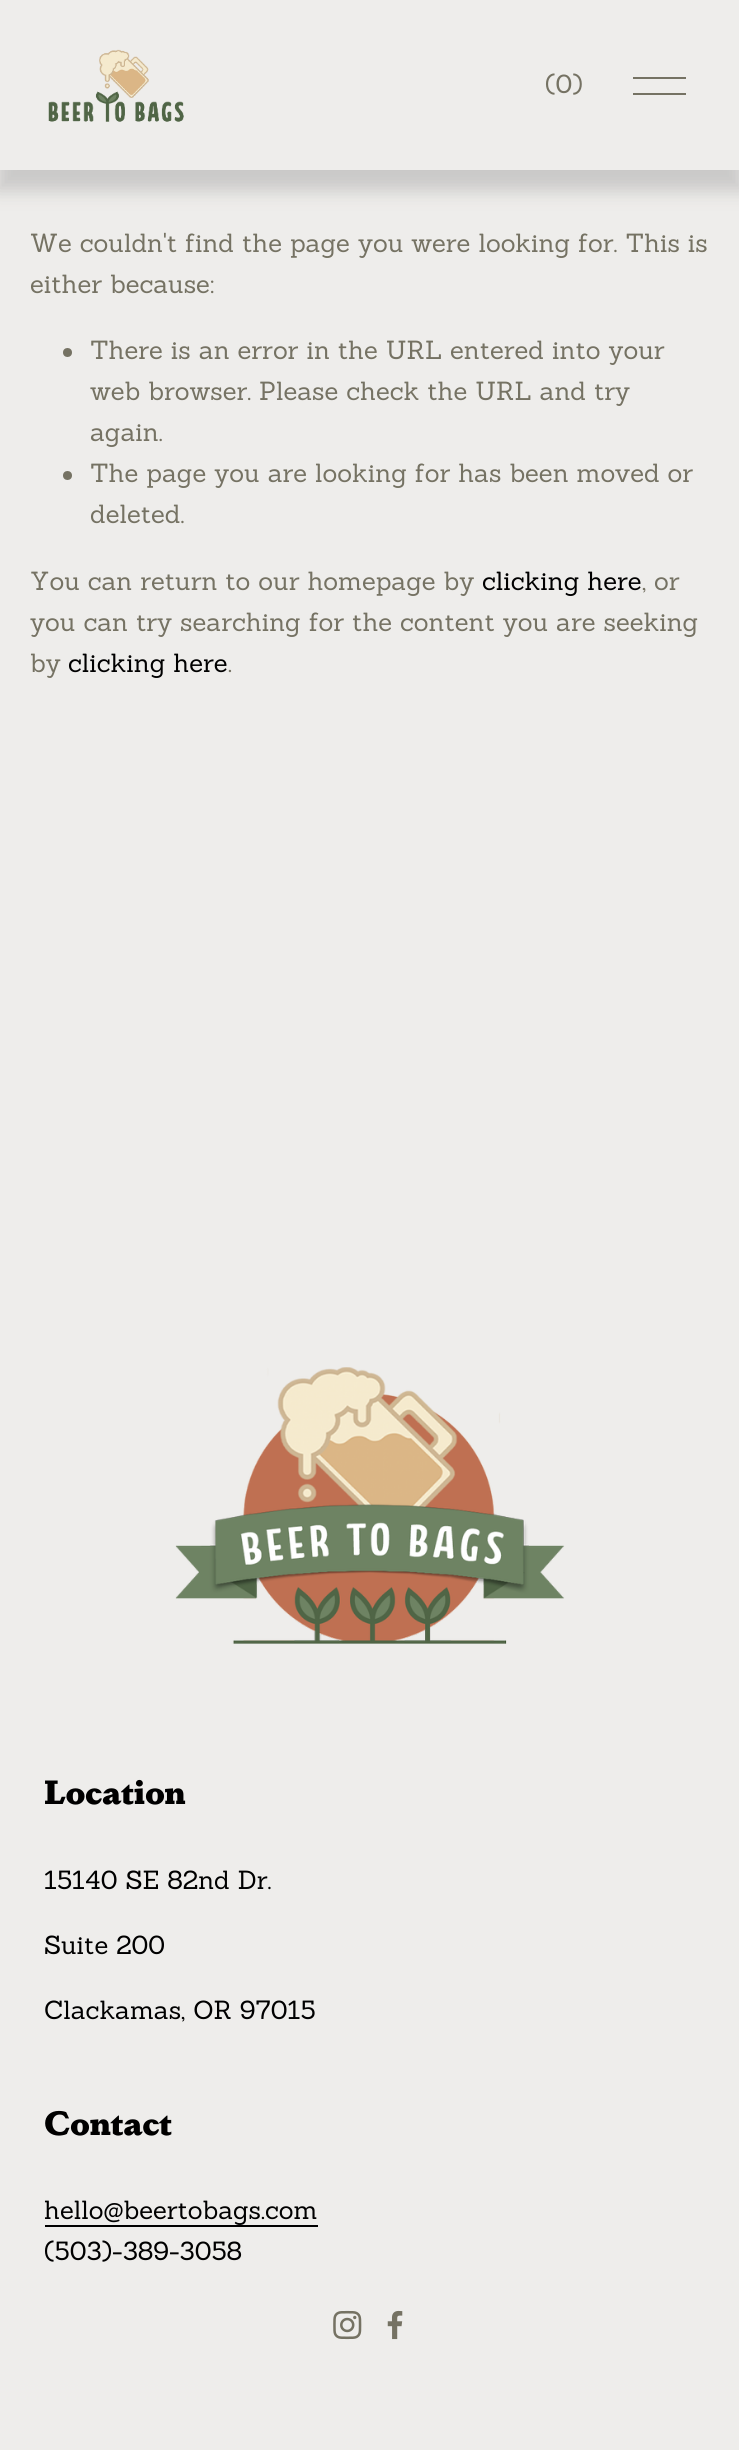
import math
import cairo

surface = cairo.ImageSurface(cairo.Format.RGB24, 739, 2450)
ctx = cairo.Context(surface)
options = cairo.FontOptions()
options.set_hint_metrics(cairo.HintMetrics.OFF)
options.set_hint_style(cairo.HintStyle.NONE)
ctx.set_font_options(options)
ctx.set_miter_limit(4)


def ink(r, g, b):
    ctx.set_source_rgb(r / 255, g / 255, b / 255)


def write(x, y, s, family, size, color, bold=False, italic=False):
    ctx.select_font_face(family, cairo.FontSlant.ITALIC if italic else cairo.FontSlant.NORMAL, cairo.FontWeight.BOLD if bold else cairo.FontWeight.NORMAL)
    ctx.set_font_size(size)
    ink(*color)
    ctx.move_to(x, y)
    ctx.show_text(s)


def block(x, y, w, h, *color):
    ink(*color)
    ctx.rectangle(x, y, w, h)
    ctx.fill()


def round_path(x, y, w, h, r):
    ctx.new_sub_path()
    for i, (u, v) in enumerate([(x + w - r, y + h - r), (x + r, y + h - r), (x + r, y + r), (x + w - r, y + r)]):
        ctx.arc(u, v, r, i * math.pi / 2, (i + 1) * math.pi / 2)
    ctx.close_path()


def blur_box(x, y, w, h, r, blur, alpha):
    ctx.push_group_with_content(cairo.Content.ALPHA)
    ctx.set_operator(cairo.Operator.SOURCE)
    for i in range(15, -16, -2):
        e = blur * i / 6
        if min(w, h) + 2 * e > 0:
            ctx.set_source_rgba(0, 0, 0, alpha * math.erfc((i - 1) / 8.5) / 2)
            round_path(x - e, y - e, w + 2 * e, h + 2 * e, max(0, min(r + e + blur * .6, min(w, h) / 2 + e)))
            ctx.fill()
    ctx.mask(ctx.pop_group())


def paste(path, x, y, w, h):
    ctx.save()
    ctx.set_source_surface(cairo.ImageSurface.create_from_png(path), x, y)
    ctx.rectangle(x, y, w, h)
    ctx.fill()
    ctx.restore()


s1 = dict(family="Sanchez", size=25.6, color=(117, 114, 99))
s2 = dict(family="Sanchez", size=25.6, color=(0, 0, 0))
s3 = dict(family="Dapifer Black", size=33.5, color=(0, 0, 0))

ink(238, 237, 235)
ctx.paint()
ctx.save()
ctx.set_fill_rule(cairo.FillRule.EVEN_ODD)
ctx.new_path()
ctx.move_to(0, 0)
ctx.line_to(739, 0)
ctx.line_to(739, 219)
ctx.line_to(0, 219)
ctx.close_path()
ctx.move_to(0, 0)
ctx.line_to(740, 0)
ctx.line_to(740, 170)
ctx.line_to(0, 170)
ctx.close_path()
ctx.clip()
ink(202, 201, 200)
blur_box(-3, 15, 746, 176, 0, 9, 1)
ctx.restore()
paste("pic1.png", 48, 49, 136, 73)
write(545, 93, "(0)", **s1)
block(633, 77, 53, 2, 117, 114, 99)
block(633, 93, 53, 2, 117, 114, 99)
write(30, 252, "We couldn't find the page you were looking for. This is", **s1)
write(30, 293, "either because:", **s1)
ctx.new_path()
ctx.arc(67.5, 352.5, 4.5, 0, 2 * math.pi)
ctx.fill()
write(90, 359, "There is an error in the URL entered into your", **s1)
write(90, 400, "web browser. Please check the URL and try", **s1)
write(90, 441, "again.", **s1)
ctx.new_path()
ctx.arc(67.5, 475.5, 4.5, 0, 2 * math.pi)
ctx.fill()
write(90, 482, "The page you are looking for has been moved or", **s1)
write(90, 523, "deleted.", **s1)
write(30, 590, "You can return to our homepage by", **s1)
write(482, 590, "clicking here", **s2)
write(642, 590, ", or", **s1)
write(30, 631, "you can try searching for the content you are seeking", **s1)
write(30, 672, "by", **s1)
write(68, 672, "clicking here", **s2)
write(228, 672, ".", **s1)
paste("pic2.png", 175, 1367, 390, 277)
write(44, 1804, "Location", **s3)
write(44, 1889, "15140 SE 82nd Dr.", **s2)
write(44, 1954, "Suite 200", **s2)
write(44, 2019, "Clackamas, OR 97015", **s2)
write(44, 2135, "Contact", **s3)
write(44, 2219, "hello@beertobags.com", **s2)
block(45, 2225, 273, 2, 0, 0, 0)
write(44, 2260, "(503)-389-3058", **s2)
paste("pic3.png", 333, 2310, 29, 30)
paste("pic4.png", 387, 2310, 16, 30)
surface.write_to_png("screenshot.png")
